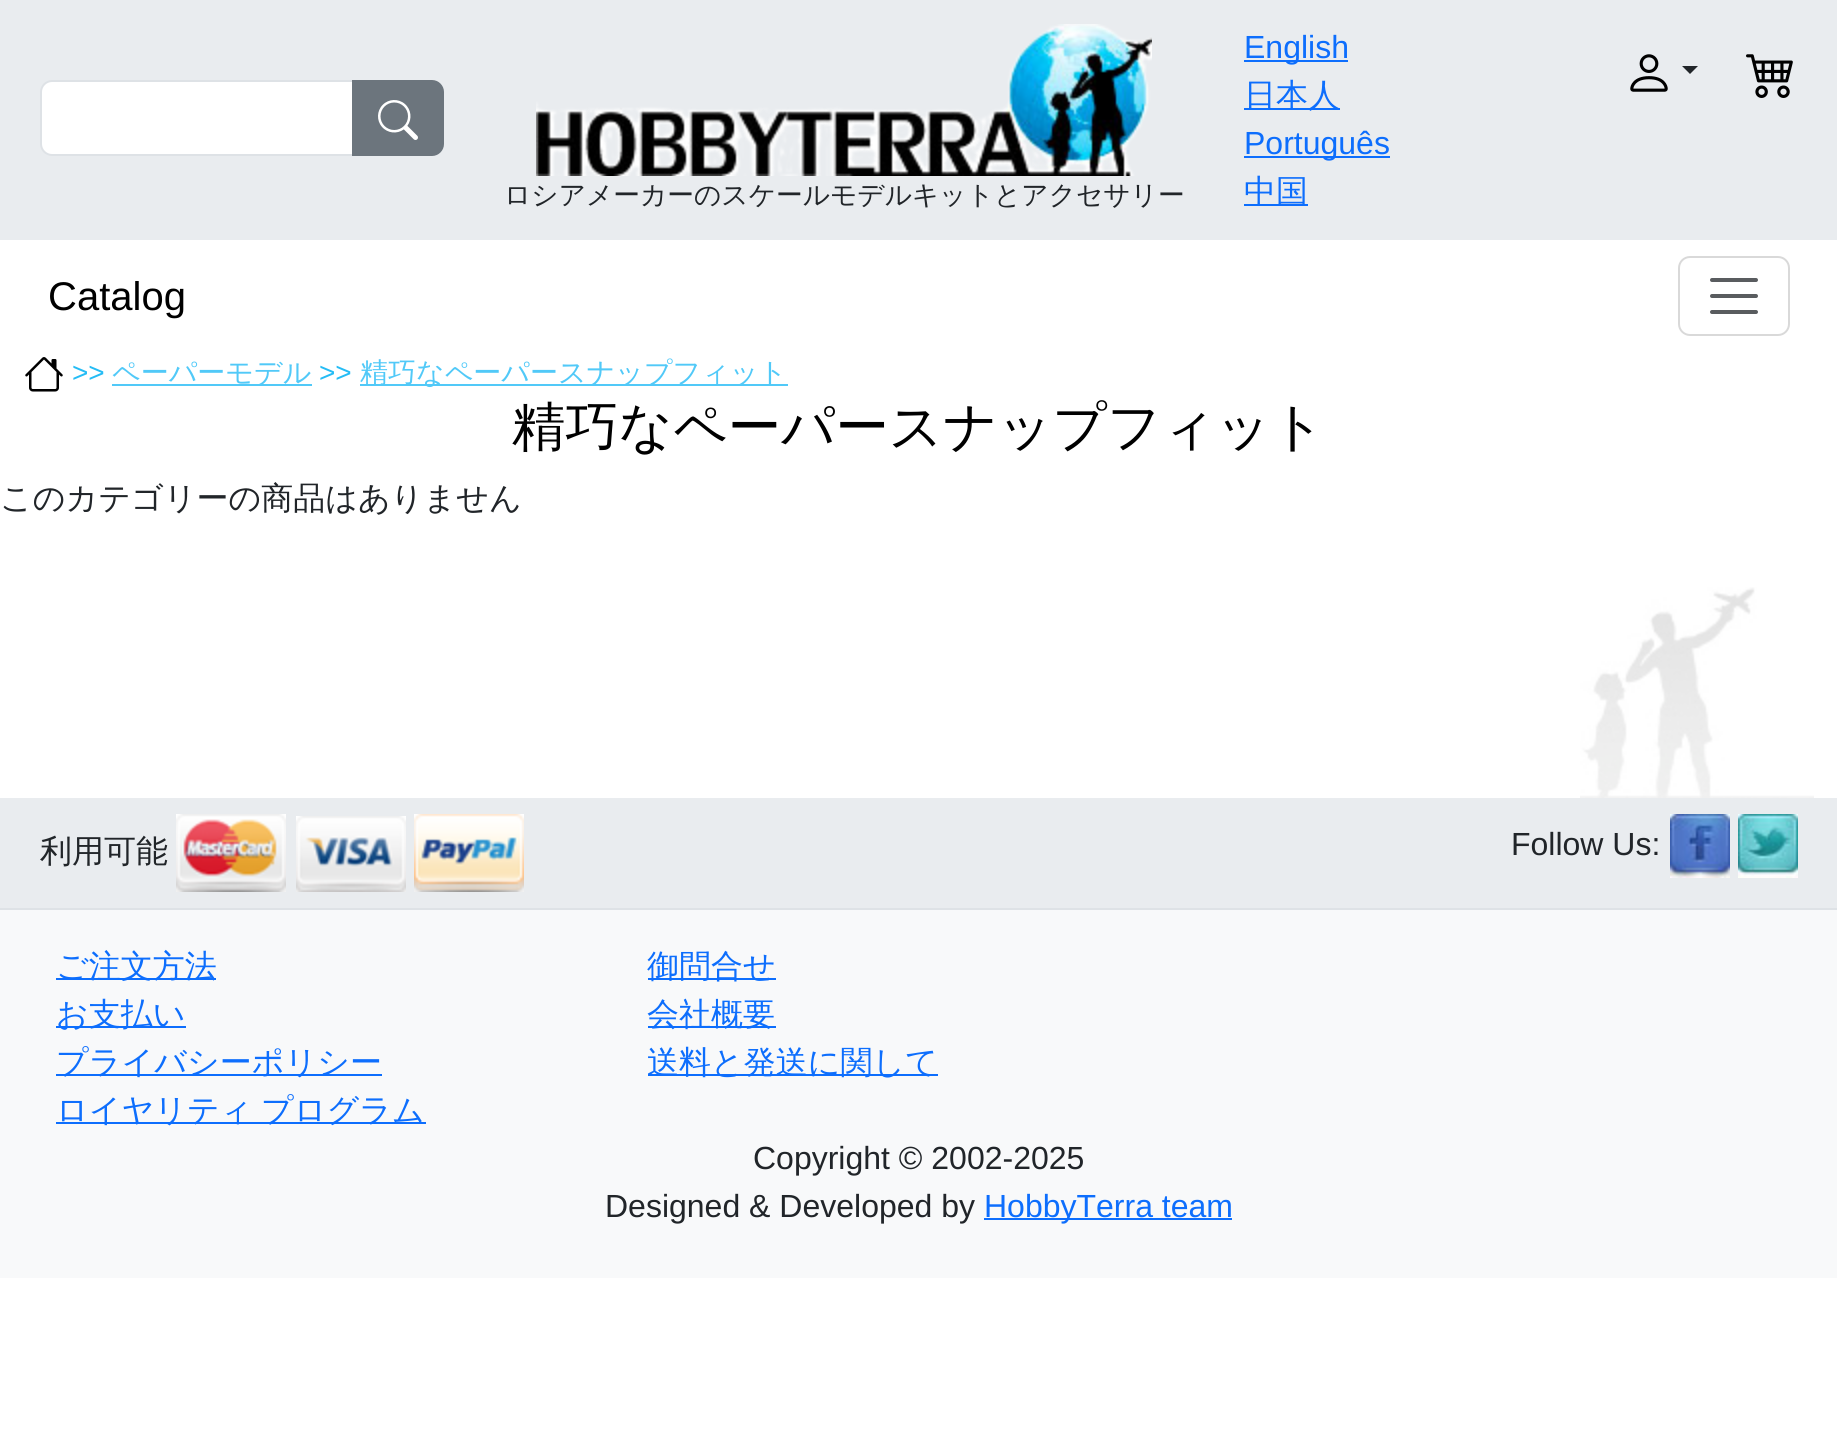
import math
import cairo

surface = cairo.ImageSurface(cairo.Format.RGB24, 1837, 1453)
ctx = cairo.Context(surface)
options = cairo.FontOptions()
options.set_hint_metrics(cairo.HintMetrics.OFF)
options.set_hint_style(cairo.HintStyle.NONE)
ctx.set_font_options(options)
ctx.set_miter_limit(4)


def ink(r, g, b):
    ctx.set_source_rgb(r / 255, g / 255, b / 255)


def write(x, y, s, family, size, color, bold=False, italic=False):
    ctx.select_font_face(family, cairo.FontSlant.ITALIC if italic else cairo.FontSlant.NORMAL, cairo.FontWeight.BOLD if bold else cairo.FontWeight.NORMAL)
    ctx.set_font_size(size)
    ink(*color)
    ctx.move_to(x, y)
    ctx.show_text(s)


def write_spaced(x, y, s, letter, word):
    ctx.move_to(x, y)
    for ch in s:
        ctx.show_text(ch)
        ctx.rel_move_to(letter + word * (ch == ' '), 0)


def block(x, y, w, h, *color):
    ink(*color)
    ctx.rectangle(x, y, w, h)
    ctx.fill()


def round_path(x, y, w, h, r):
    ctx.new_sub_path()
    for i, (u, v) in enumerate([(x + w - r, y + h - r), (x + r, y + h - r), (x + r, y + r), (x + w - r, y + r)]):
        ctx.arc(u, v, r, i * math.pi / 2, (i + 1) * math.pi / 2)
    ctx.close_path()


def paste(path, x, y, w, h):
    ctx.save()
    ctx.set_source_surface(cairo.ImageSurface.create_from_png(path), x, y)
    ctx.rectangle(x, y, w, h)
    ctx.fill()
    ctx.restore()


s1 = dict(family="Liberation Sans", size=32, color=(13, 110, 253))
s2 = dict(family="WenQuanYi Zen Hei Medium", size=32, color=(13, 110, 253))
s3 = dict(family="WenQuanYi Zen Hei Medium", size=26.7, color=(33, 37, 41))
s4 = dict(family="Liberation Sans", size=40, color=(0, 0, 0))
s5 = dict(family="Liberation Sans", size=28, color=(37, 188, 245))
s6 = dict(family="WenQuanYi Zen Hei Medium", size=28, color=(81, 201, 248))
s7 = dict(family="WenQuanYi Zen Hei Medium", size=53.3, color=(0, 0, 0))
s8 = dict(family="WenQuanYi Zen Hei Medium", size=32, color=(33, 37, 41))
s9 = dict(family="Liberation Sans", size=32, color=(33, 37, 41))

ink(255, 255, 255)
ctx.paint()
block(0, 0, 1837, 240, 233, 236, 239)
ink(255, 255, 255)
ctx.new_path()
ctx.move_to(52, 81)
ctx.line_to(353, 81)
ctx.line_to(353, 155)
ctx.line_to(52, 155)
ctx.curve_to(46, 155, 41, 150, 41, 144)
ctx.line_to(41, 92)
ctx.curve_to(41, 86, 46, 81, 52, 81)
ctx.close_path()
ctx.fill_preserve()
ink(222, 226, 230)
ctx.stroke()
ink(108, 117, 125)
ctx.new_path()
ctx.move_to(353, 81)
ctx.line_to(432, 81)
ctx.curve_to(438, 81, 443, 86, 443, 92)
ctx.line_to(443, 144)
ctx.curve_to(443, 150, 438, 155, 432, 155)
ctx.line_to(353, 155)
ctx.close_path()
ctx.fill_preserve()
ctx.stroke()
paste("pic1.png", 378, 100, 40, 40)
block(1244, 60, 104, 2, 13, 110, 253)
write(1244, 58, "English", **s1)
block(1244, 108, 96, 2, 13, 110, 253)
write(1244, 106, "日本人", **s2)
block(1244, 156, 146, 2, 13, 110, 253)
write(1244, 154, "Português", **s1)
block(1244, 204, 64, 2, 13, 110, 253)
write(1244, 202, "中国", **s2)
paste("pic2.png", 1630, 54, 38, 38)
ink(33, 37, 41)
ctx.new_path()
ctx.move_to(1682, 66)
ctx.line_to(1698, 66)
ctx.line_to(1690, 74)
ctx.close_path()
ctx.fill()
paste("pic3.png", 1746, 54, 47, 44)
paste("pic4.png", 536, 24, 616, 152)
write(504, 204, "ロシアメーカーのスケールモデルキットとアクセサリー", **s3)
write(48, 310, "Catalog", **s4)
round_path(1679, 257, 110, 78, 11)
ink(217, 217, 217)
ctx.stroke()
ctx.new_path()
ctx.move_to(1712, 280)
ctx.line_to(1756, 280)
ctx.move_to(1712, 296)
ctx.line_to(1756, 296)
ctx.move_to(1712, 312)
ctx.line_to(1756, 312)
ink(89, 92, 95)
ctx.set_line_width(4)
ctx.set_line_cap(cairo.LineCap.ROUND)
ctx.stroke()
paste("pic5.png", 25, 357, 38, 35)
write(72, 382, ">>", **s5)
block(112, 384, 200, 2, 81, 201, 248)
write(112, 382, "ペーパーモデル", **s6)
write(319, 382, ">>", **s5)
block(360, 384, 428, 2, 81, 201, 248)
write(360, 382, "精巧なペーパースナップフィット", **s6)
write(512, 445, "精巧なペーパースナップフィット", **s7)
write(0, 509, "このカテゴリーの商品はありません", **s8)
paste("pic6.png", 1580, 587, 234, 211)
block(0, 798, 1837, 110, 233, 236, 239)
block(0, 908, 1837, 2, 222, 226, 230)
write(40, 862, "利用可能", **s8)
paste("pic7.png", 176, 814, 110, 78)
paste("pic8.png", 296, 816, 110, 76)
paste("pic9.png", 414, 814, 110, 78)
write(1511, 855, "Follow Us:", **s9)
paste("pic10.png", 1670, 814, 60, 64)
paste("pic11.png", 1738, 814, 60, 64)
block(0, 910, 1837, 368, 248, 249, 250)
block(56, 978, 160, 2, 13, 110, 253)
write(56, 977, "ご注文方法", **s2)
block(56, 1026, 130, 2, 13, 110, 253)
write(56, 1025, "お支払い", **s2)
block(56, 1074, 326, 2, 13, 110, 253)
write(56, 1073, "プライバシーポリシー", **s2)
block(56, 1122, 370, 2, 13, 110, 253)
write_spaced(56, 1121, "ロイヤリティ プログラム", 0, -1)
block(648, 978, 128, 2, 13, 110, 253)
write(647, 977, "御問合せ", **s2)
block(648, 1026, 128, 2, 13, 110, 253)
write(647, 1025, "会社概要", **s2)
block(648, 1074, 290, 2, 13, 110, 253)
write(647, 1073, "送料と発送に関して", **s2)
write(753, 1169, "Copyright © 2002-2025", **s9)
write(605, 1217, "Designed & Developed by", **s9)
block(984, 1218, 248, 2, 13, 110, 253)
write(984, 1217, "HobbyTerra team", **s1)
surface.write_to_png("screenshot.png")
